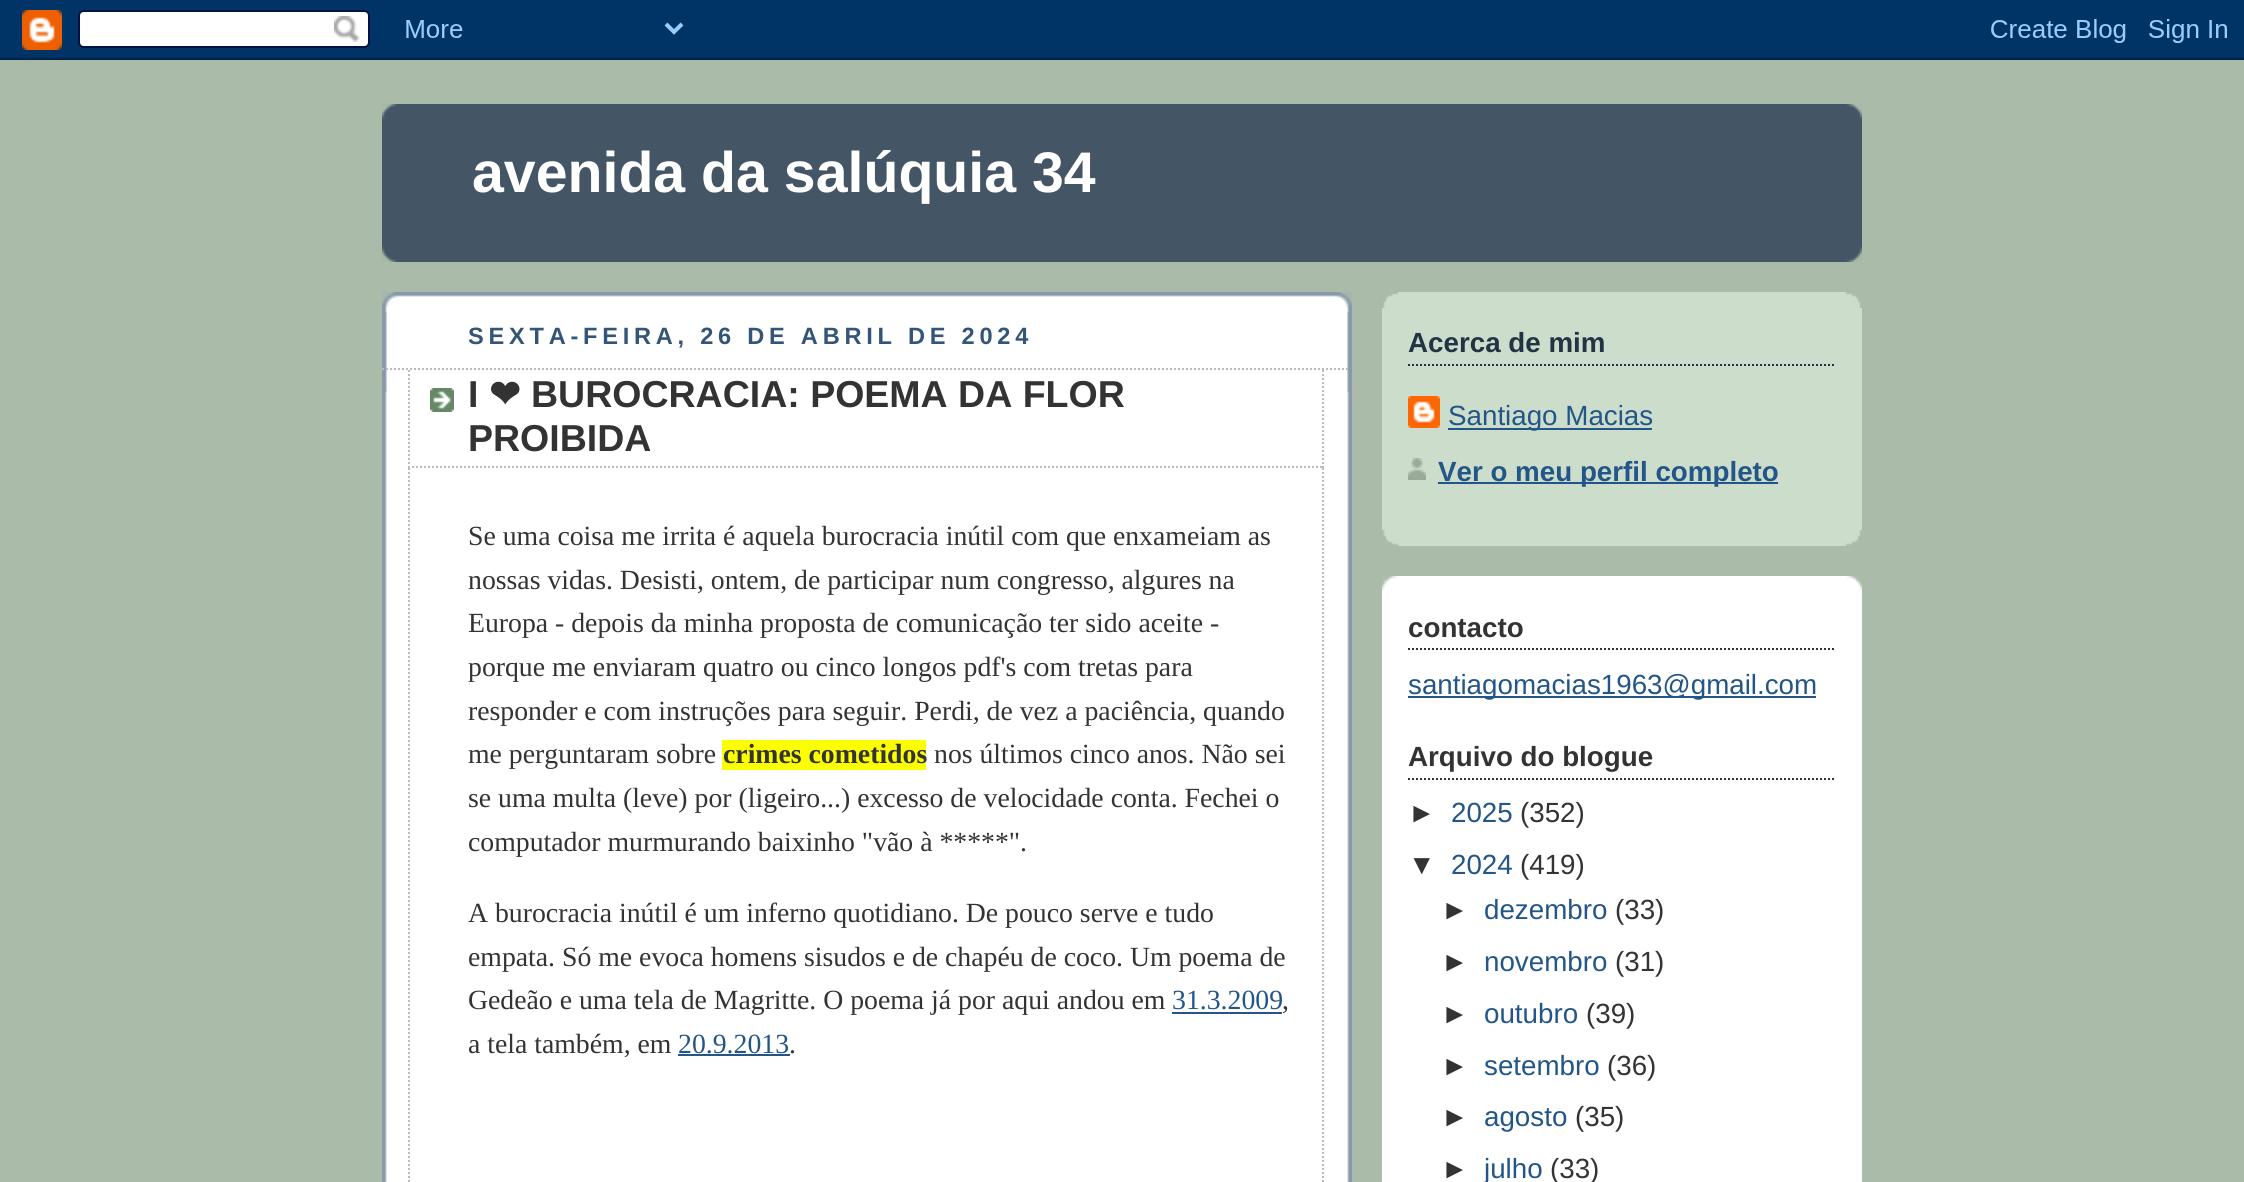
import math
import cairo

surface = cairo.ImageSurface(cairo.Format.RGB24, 2244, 1182)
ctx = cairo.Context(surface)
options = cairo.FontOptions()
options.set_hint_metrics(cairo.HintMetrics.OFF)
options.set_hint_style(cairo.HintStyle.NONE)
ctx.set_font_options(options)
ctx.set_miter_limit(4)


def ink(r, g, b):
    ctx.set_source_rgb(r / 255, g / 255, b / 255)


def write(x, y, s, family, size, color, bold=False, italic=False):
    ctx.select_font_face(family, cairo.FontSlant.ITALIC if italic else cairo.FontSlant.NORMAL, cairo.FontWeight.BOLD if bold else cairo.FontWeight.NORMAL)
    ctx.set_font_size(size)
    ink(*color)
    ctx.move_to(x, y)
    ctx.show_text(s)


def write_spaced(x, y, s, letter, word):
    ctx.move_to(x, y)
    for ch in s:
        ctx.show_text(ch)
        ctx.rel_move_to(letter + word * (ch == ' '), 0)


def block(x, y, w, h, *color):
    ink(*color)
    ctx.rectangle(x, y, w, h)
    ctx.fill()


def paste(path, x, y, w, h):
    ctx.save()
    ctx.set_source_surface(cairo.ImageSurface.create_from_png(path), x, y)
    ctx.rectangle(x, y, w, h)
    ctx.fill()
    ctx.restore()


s1 = dict(family="Liberation Sans", size=57.25, color=(255, 255, 255), bold=True)
s2 = dict(family="Liberation Sans", size=37.5, color=(51, 51, 51), bold=True)
s3 = dict(family="DejaVu Sans", size=37.5, color=(51, 51, 51), bold=True)
s4 = dict(family="Liberation Serif", size=27.75, color=(51, 51, 51))
s5 = dict(family="Liberation Serif", size=27.75, color=(51, 51, 51), bold=True)
s6 = dict(family="Liberation Serif", size=27.75, color=(34, 85, 136))
s7 = dict(family="Liberation Sans", size=27.75, color=(34, 51, 68), bold=True)
s8 = dict(family="Liberation Sans", size=27.75, color=(34, 85, 136))
s9 = dict(family="Liberation Sans", size=27.75, color=(34, 85, 136), bold=True)
s10 = dict(family="Liberation Sans", size=27.75, color=(51, 51, 51), bold=True)
s11 = dict(family="Liberation Sans", size=27.75, color=(51, 51, 51))

ink(170, 187, 170)
ctx.paint()
paste("pic1.png", 0, 0, 2244, 60)
block(382, 104, 1480, 158, 68, 85, 102)
paste("pic2.png", 382, 104, 1480, 16)
paste("pic3.png", 382, 246, 1480, 16)
write(472, 192, "avenida da salúquia 34", **s1)
block(385, 295, 964, 887, 255, 255, 255)
paste("pic4.png", 382, 292, 970, 100)
paste("pic5.png", 382, 312, 970, 870)
ctx.set_font_size(23.6)
ink(51, 85, 119)
write_spaced(468, 344, "SEXTA-FEIRA, 26 DE ABRIL DE 2024", 4.75, 0)
ctx.new_path()
ctx.move_to(382, 369)
ctx.line_to(1350, 369)
ink(187, 187, 187)
ctx.set_dash([2, 2])
ctx.stroke()
paste("pic6.png", 430, 388, 24, 24)
ctx.new_path()
ctx.move_to(1323, 370)
ctx.line_to(1323, 468)
ctx.stroke()
ctx.new_path()
ctx.move_to(408, 467)
ctx.line_to(1324, 467)
ctx.stroke()
ctx.new_path()
ctx.move_to(409, 370)
ctx.line_to(409, 468)
ctx.stroke()
write(468, 407, "I", **s2)
write(489, 407, "❤", **s3)
write(531, 407, "BUROCRACIA: POEMA DA FLOR", **s2)
write(468, 451, "PROIBIDA", **s2)
ctx.new_path()
ctx.move_to(1323, 468)
ctx.line_to(1323, 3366)
ink(187, 187, 187)
ctx.stroke()
ctx.new_path()
ctx.move_to(409, 468)
ctx.line_to(409, 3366)
ctx.stroke()
write(468, 545, "Se uma coisa me irrita é aquela burocracia inútil com que enxameiam as", **s4)
write(468, 589, "nossas vidas. Desisti, ontem, de participar num congresso, algures na", **s4)
write(468, 632, "Europa - depois da minha proposta de comunicação ter sido aceite -", **s4)
write(468, 676, "porque me enviaram quatro ou cinco longos pdf's com tretas para", **s4)
write(468, 720, "responder e com instruções para seguir. Perdi, de vez a paciência, quando", **s4)
write(468, 763, "me perguntaram sobre", **s4)
block(722, 740, 204, 30, 252, 255, 1)
write(723, 763, "crimes cometidos", **s5)
write(934, 763, "nos últimos cinco anos. Não sei", **s4)
write(468, 807, "se uma multa (leve) por (ligeiro...) excesso de velocidade conta. Fechei o", **s4)
write(468, 851, "computador murmurando baixinho \"vão à *****\".", **s4)
write(468, 922, "A burocracia inútil é um inferno quotidiano. De pouco serve e tudo", **s4)
write(468, 966, "empata. Só me evoca homens sisudos e de chapéu de coco. Um poema de", **s4)
write(468, 1009, "Gedeão e uma tela de Magritte. O poema já por aqui andou em", **s4)
write(1172, 1009, "31.3.2009", **s6)
write(1282, 1009, ",", **s4)
block(1172, 1012, 110, 2, 34, 85, 136)
write(468, 1053, "a tela também, em", **s4)
write(678, 1053, "20.9.2013", **s6)
write(789, 1053, ".", **s4)
block(678, 1054, 112, 2, 34, 85, 136)
block(1382, 292, 480, 254, 204, 221, 204)
paste("pic7.png", 1382, 530, 480, 16)
paste("pic8.png", 1382, 292, 480, 16)
ctx.new_path()
ctx.move_to(1408, 365)
ctx.line_to(1836, 365)
ink(34, 51, 68)
ctx.stroke()
write(1408, 352, "Acerca de mim", **s7)
paste("pic9.png", 1408, 396, 32, 32)
block(1448, 428, 204, 2, 34, 85, 136)
write(1448, 425, "Santiago Macias", **s8)
paste("pic10.png", 1408, 458, 18, 22)
block(1438, 482, 340, 2, 34, 85, 136)
write(1438, 481, "Ver o meu perfil completo", **s9)
block(1382, 576, 480, 606, 255, 255, 255)
paste("pic11.png", 1382, 576, 480, 15)
ctx.new_path()
ctx.move_to(1408, 649)
ctx.line_to(1836, 649)
ink(51, 51, 51)
ctx.stroke()
write(1408, 637, "contacto", **s10)
block(1408, 696, 408, 2, 34, 85, 136)
write(1408, 694, "santiagomacias1963@gmail.com", **s8)
ctx.new_path()
ctx.move_to(1408, 779)
ctx.line_to(1836, 779)
ink(51, 51, 51)
ctx.stroke()
write(1408, 766, "Arquivo do blogue", **s10)
write(1408, 822, "►", **s11)
write(1451, 822, "2025", **s8)
write(1520, 822, "(352)", **s11)
write(1408, 874, "▼", **s11)
write(1451, 874, "2024", **s8)
write(1520, 874, "(419)", **s11)
write(1441, 919, "►", **s11)
write(1484, 919, "dezembro", **s8)
write(1615, 919, "(33)", **s11)
write(1441, 971, "►", **s11)
write(1484, 971, "novembro", **s8)
write(1615, 971, "(31)", **s11)
write(1441, 1023, "►", **s11)
write(1484, 1023, "outubro", **s8)
write(1586, 1023, "(39)", **s11)
write(1441, 1075, "►", **s11)
write(1484, 1075, "setembro", **s8)
write(1607, 1075, "(36)", **s11)
write(1441, 1126, "►", **s11)
write(1484, 1126, "agosto", **s8)
write(1575, 1126, "(35)", **s11)
write(1441, 1178, "►", **s11)
write(1484, 1178, "julho", **s8)
write(1550, 1178, "(33)", **s11)
surface.write_to_png("screenshot.png")
